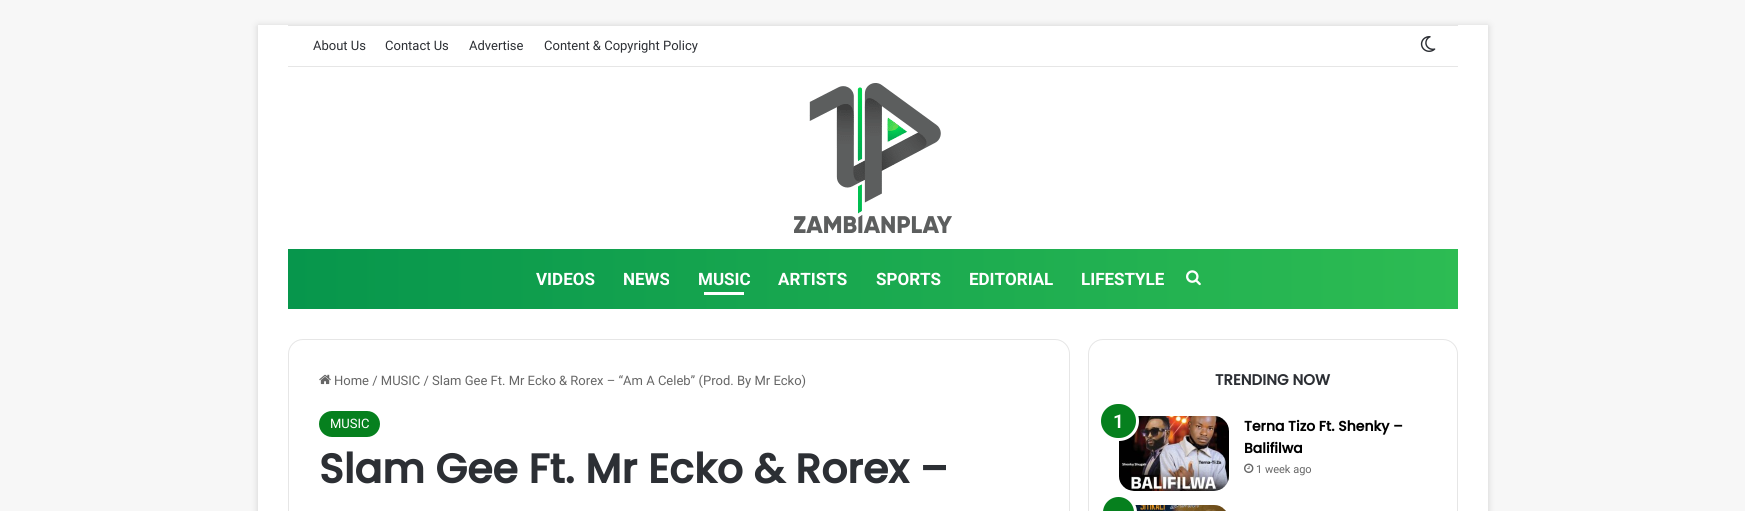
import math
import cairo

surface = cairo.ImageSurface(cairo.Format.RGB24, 1745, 511)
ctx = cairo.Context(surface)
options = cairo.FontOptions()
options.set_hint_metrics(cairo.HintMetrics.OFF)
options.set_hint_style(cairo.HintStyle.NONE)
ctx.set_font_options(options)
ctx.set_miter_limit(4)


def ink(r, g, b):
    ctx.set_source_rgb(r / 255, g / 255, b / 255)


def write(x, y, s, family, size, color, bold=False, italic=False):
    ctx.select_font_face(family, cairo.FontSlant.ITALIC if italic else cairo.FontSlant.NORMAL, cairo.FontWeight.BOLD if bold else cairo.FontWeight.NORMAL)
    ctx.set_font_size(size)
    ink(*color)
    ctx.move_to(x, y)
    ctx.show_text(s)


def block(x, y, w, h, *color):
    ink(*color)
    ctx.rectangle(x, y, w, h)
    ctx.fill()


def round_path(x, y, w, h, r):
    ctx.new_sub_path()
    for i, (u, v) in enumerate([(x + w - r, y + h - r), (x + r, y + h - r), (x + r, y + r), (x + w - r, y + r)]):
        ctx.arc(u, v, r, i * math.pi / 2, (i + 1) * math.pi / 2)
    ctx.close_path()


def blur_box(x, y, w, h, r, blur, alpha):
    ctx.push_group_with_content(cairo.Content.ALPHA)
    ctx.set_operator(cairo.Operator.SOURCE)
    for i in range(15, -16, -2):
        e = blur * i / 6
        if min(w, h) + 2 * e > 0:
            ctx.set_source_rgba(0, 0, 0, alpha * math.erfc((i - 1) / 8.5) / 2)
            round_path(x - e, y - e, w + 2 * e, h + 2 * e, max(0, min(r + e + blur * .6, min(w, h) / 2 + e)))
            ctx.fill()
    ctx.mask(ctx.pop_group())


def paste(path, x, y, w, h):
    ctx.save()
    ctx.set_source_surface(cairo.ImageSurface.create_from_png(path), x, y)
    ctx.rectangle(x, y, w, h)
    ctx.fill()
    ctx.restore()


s1 = dict(family="Roboto", size=13, color=(44, 47, 52))
s2 = dict(family="Roboto", size=17, color=(255, 255, 255), bold=True)
s3 = dict(family="Roboto", size=13, color=(102, 102, 102))
s4 = dict(family="Roboto", size=13, color=(255, 255, 255))
s5 = dict(family="Poppins", size=41, color=(44, 47, 52), bold=True)
s6 = dict(family="Poppins", size=15, color=(44, 47, 52), bold=True)
s7 = dict(family="Roboto SemiBold", size=19, color=(255, 255, 255))
s8 = dict(family="Poppins", size=14, color=(0, 0, 0), bold=True)
s9 = dict(family="Roboto", size=11, color=(102, 102, 102))

ink(247, 247, 247)
ctx.paint()
ink(171, 171, 171)
blur_box(258, 26, 1230, 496, 0, 3.5, 0.5)
block(258, 25, 1230, 486, 255, 255, 255)
block(288, 25, 1170, 1, 230, 230, 230)
block(288, 66, 1170, 1, 230, 230, 230)
write(313, 50, "About Us", **s1)
write(385, 50, "Contact Us", **s1)
write(469, 50, "Advertise", **s1)
write(544, 50, "Content & Copyright Policy", **s1)
paste("pic1.png", 1420, 36, 16, 16)
paste("pic2.png", 794, 83, 158, 150)
gradient = cairo.LinearGradient(288, 279, 1458, 279)
gradient.add_color_stop_rgba(0, 0.027, 0.588, 0.298, 1)
gradient.add_color_stop_rgba(1, 0.176, 0.737, 0.325, 1)
ctx.set_source(gradient)
ctx.rectangle(288, 249, 1170, 60)
ctx.fill()
write(536, 285, "VIDEOS", **s2)
write(623, 285, "NEWS", **s2)
write(698, 285, "MUSIC", **s2)
block(704, 292, 40, 3, 255, 255, 255)
write(778, 285, "ARTISTS", **s2)
write(876, 285, "SPORTS", **s2)
write(969, 285, "EDITORIAL", **s2)
write(1081, 285, "LIFESTYLE", **s2)
paste("pic3.png", 1186, 270, 15, 16)
round_path(288.5, 339.5, 781, 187, 14.5)
ink(230, 230, 230)
ctx.set_line_width(1)
ctx.stroke()
paste("pic4.png", 319, 374, 12, 11)
write(334, 385, "Home / MUSIC / Slam Gee Ft. Mr Ecko & Rorex – “Am A Celeb” (Prod. By Mr Ecko)", **s3)
ink(6, 128, 30)
round_path(319, 411, 61, 26, 13)
ctx.fill()
write(330, 428, "MUSIC", **s4)
write(319, 483, "Slam Gee Ft. Mr Ecko & Rorex –", **s5)
round_path(1088.5, 339.5, 369, 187, 14.5)
ink(230, 230, 230)
ctx.stroke()
write(1215, 385, "TRENDING NOW", **s6)
paste("pic5.png", 1119, 416, 110, 75)
ink(6, 128, 30)
round_path(1099.5, 402.5, 38, 37, 18.5)
ctx.fill_preserve()
ink(255, 255, 255)
ctx.set_line_width(3)
ctx.stroke()
write(1113, 428, "1", **s7)
write(1244, 431, "Terna Tizo Ft. Shenky –", **s8)
write(1244, 453, "Balifilwa", **s8)
paste("pic6.png", 1244, 463, 10, 10)
write(1256, 473, "1 week ago", **s9)
paste("pic7.png", 1135, 505, 91, 6)
ink(6, 128, 30)
round_path(1101.5, 495.5, 34, 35, 17)
ctx.fill_preserve()
ink(255, 255, 255)
ctx.stroke()
surface.write_to_png("screenshot.png")
